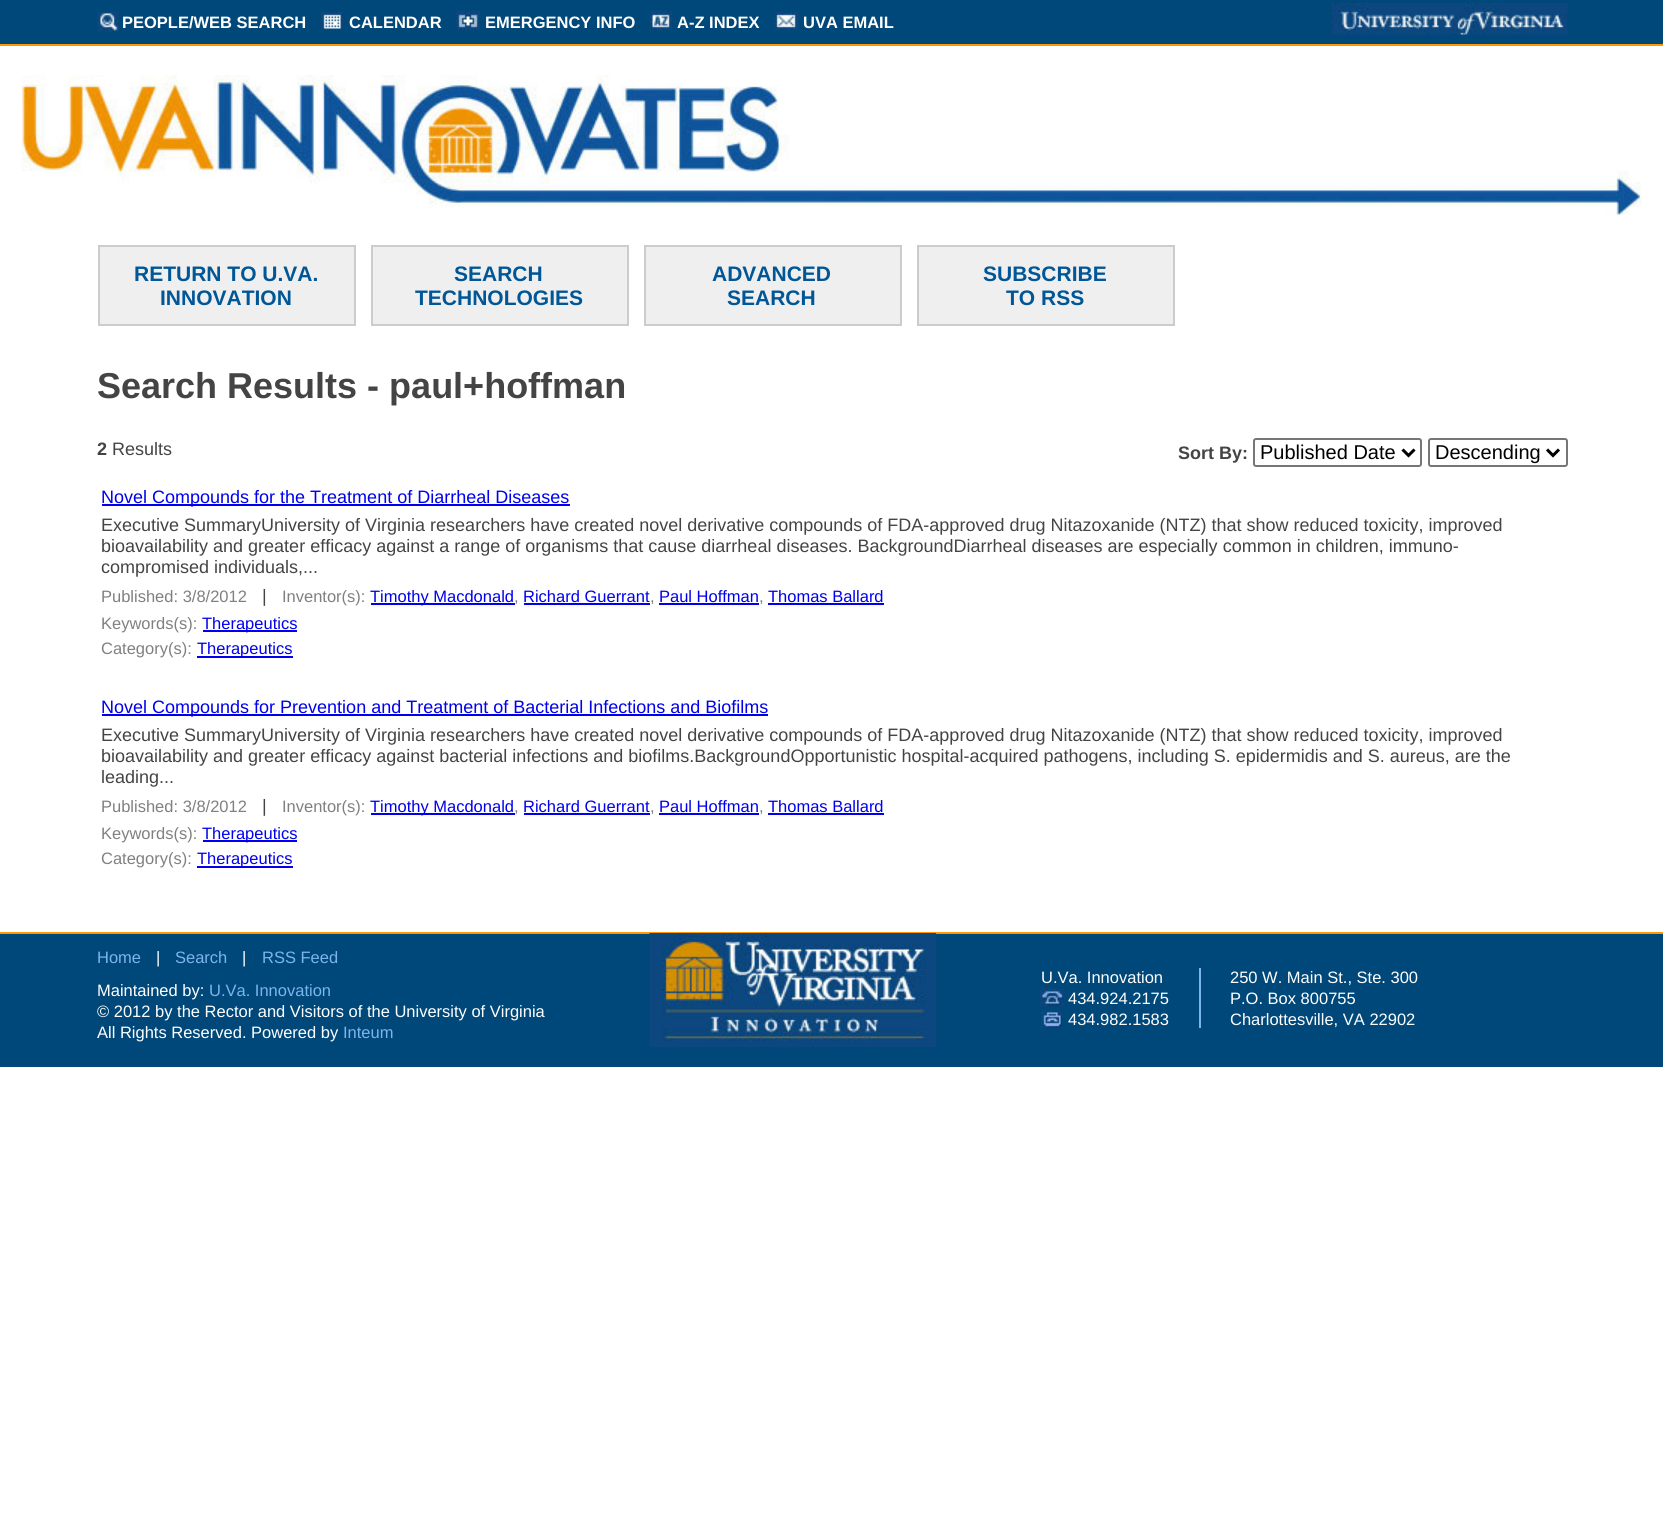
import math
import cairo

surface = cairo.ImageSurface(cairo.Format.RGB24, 1663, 1526)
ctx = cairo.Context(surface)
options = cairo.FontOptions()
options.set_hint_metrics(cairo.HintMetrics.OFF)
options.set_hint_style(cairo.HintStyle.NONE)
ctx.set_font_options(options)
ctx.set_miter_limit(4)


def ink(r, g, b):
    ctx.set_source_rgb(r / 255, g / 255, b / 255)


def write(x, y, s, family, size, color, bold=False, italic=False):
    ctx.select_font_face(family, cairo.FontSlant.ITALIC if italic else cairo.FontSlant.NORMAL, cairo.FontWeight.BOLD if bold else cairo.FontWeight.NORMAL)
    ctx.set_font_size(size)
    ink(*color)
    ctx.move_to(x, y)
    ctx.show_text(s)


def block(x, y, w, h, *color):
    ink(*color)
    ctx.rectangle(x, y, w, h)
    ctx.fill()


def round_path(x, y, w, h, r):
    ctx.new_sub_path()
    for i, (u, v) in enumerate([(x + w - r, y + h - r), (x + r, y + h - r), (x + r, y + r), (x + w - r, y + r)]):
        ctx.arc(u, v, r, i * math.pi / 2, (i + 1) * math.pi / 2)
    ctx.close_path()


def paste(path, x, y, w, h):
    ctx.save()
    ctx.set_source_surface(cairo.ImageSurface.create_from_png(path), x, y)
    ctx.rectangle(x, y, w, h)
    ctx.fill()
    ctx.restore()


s1 = dict(family="Liberation Sans", size=16.5, color=(255, 255, 255), bold=True)
s2 = dict(family="Liberation Sans", size=21, color=(0, 86, 150), bold=True)
s3 = dict(family="Liberation Sans", size=36, color=(68, 68, 68), bold=True)
s4 = dict(family="Liberation Sans", size=18, color=(68, 68, 68), bold=True)
s5 = dict(family="Liberation Sans", size=18, color=(68, 68, 68))
s6 = dict(family="Liberation Sans", size=20, color=(0, 0, 0))
s7 = dict(family="Liberation Sans", size=18, color=(0, 0, 238))
s8 = dict(family="Liberation Sans", size=16.5, color=(128, 128, 128))
s9 = dict(family="Liberation Sans", size=16.5, color=(0, 0, 238))
s10 = dict(family="Liberation Sans", size=16.5, color=(124, 181, 234))
s11 = dict(family="Liberation Sans", size=16.5, color=(255, 255, 255))

ink(255, 255, 255)
ctx.paint()
block(0, 0, 1663, 44, 0, 72, 122)
block(0, 44, 1663, 2, 255, 153, 0)
paste("pic1.png", 97, 12, 22, 20)
write(122, 28, "PEOPLE/WEB SEARCH", **s1)
paste("pic2.png", 321, 12, 23, 18)
write(349, 28, "CALENDAR", **s1)
paste("pic3.png", 456, 10, 24, 20)
write(485, 28, "EMERGENCY INFO", **s1)
paste("pic4.png", 649, 10, 23, 20)
write(677, 28, "A-Z INDEX", **s1)
paste("pic5.png", 774, 12, 24, 18)
write(803, 28, "UVA EMAIL", **s1)
paste("pic6.png", 1332, 3, 236, 32)
paste("pic7.png", 21, 75, 1621, 140)
ink(239, 239, 239)
ctx.rectangle(99, 246, 256, 79)
ctx.fill_preserve()
ink(204, 204, 204)
ctx.stroke()
write(134, 281, "RETURN TO U.VA.", **s2)
write(160, 305, "INNOVATION", **s2)
ink(239, 239, 239)
ctx.rectangle(372, 246, 256, 79)
ctx.fill_preserve()
ink(204, 204, 204)
ctx.stroke()
write(454, 281, "SEARCH", **s2)
write(415, 305, "TECHNOLOGIES", **s2)
ink(239, 239, 239)
ctx.rectangle(645, 246, 256, 79)
ctx.fill_preserve()
ink(204, 204, 204)
ctx.stroke()
write(712, 281, "ADVANCED", **s2)
write(727, 305, "SEARCH", **s2)
ink(239, 239, 239)
ctx.rectangle(918, 246, 256, 79)
ctx.fill_preserve()
ink(204, 204, 204)
ctx.stroke()
write(983, 281, "SUBSCRIBE", **s2)
write(1006, 305, "TO RSS", **s2)
write(97, 398, "Search Results - paul+hoffman", **s3)
write(97, 455, "2", **s4)
write(112, 455, "Results", **s5)
write(1178, 459, "Sort By:", **s4)
round_path(1254, 439, 167, 27, 2)
ink(118, 118, 118)
ctx.stroke()
ctx.new_path()
ctx.move_to(1402.5, 449.5)
ctx.line_to(1408.5, 455.5)
ctx.line_to(1414.5, 449.5)
ink(0, 0, 0)
ctx.set_line_width(3)
ctx.stroke()
write(1260, 459, "Published Date", **s6)
round_path(1429, 439, 138, 27, 2)
ink(118, 118, 118)
ctx.set_line_width(2)
ctx.stroke()
ctx.new_path()
ctx.move_to(1547, 449.5)
ctx.line_to(1553, 455.5)
ctx.line_to(1559, 449.5)
ink(0, 0, 0)
ctx.set_line_width(3)
ctx.stroke()
write(1435, 459, "Descending", **s6)
block(102, 504, 468, 2, 0, 0, 238)
write(101, 503, "Novel Compounds for the Treatment of Diarrheal Diseases", **s7)
write(101, 531, "Executive SummaryUniversity of Virginia researchers have created novel derivative compounds of FDA-approved drug Nitazoxanide (NTZ) that show reduced toxicity, improved", **s5)
write(101, 552, "bioavailability and greater efficacy against a range of organisms that cause diarrheal diseases. BackgroundDiarrheal diseases are especially common in children, immuno-", **s5)
write(101, 573, "compromised individuals,...", **s5)
write(101, 602, "Published: 3/8/2012", **s8)
write(262, 602, "|", **s5)
write(282, 602, "Inventor(s):", **s8)
block(371, 603, 144, 2, 0, 0, 238)
write(370, 602, "Timothy Macdonald", **s9)
write(514, 602, ",", **s8)
write(523, 602, "Richard Guerrant", **s9)
write(650, 602, ",", **s8)
block(524, 603, 126, 2, 0, 0, 238)
write(659, 602, "Paul Hoffman", **s9)
write(759, 602, ",", **s8)
block(659, 603, 100, 2, 0, 0, 238)
block(768, 603, 116, 2, 0, 0, 238)
write(768, 602, "Thomas Ballard", **s9)
write(101, 629, "Keywords(s):", **s8)
block(203, 630, 94, 2, 0, 0, 238)
write(202, 629, "Therapeutics", **s9)
write(101, 654, "Category(s):", **s8)
block(197, 656, 96, 2, 0, 0, 238)
write(197, 654, "Therapeutics", **s9)
block(102, 714, 666, 2, 0, 0, 238)
write(101, 713, "Novel Compounds for Prevention and Treatment of Bacterial Infections and Biofilms", **s7)
write(101, 741, "Executive SummaryUniversity of Virginia researchers have created novel derivative compounds of FDA-approved drug Nitazoxanide (NTZ) that show reduced toxicity, improved", **s5)
write(101, 762, "bioavailability and greater efficacy against bacterial infections and biofilms.BackgroundOpportunistic hospital-acquired pathogens, including S. epidermidis and S. aureus, are the", **s5)
write(101, 783, "leading...", **s5)
write(101, 812, "Published: 3/8/2012", **s8)
write(262, 812, "|", **s5)
write(282, 812, "Inventor(s):", **s8)
block(371, 813, 144, 2, 0, 0, 238)
write(370, 812, "Timothy Macdonald", **s9)
write(514, 812, ",", **s8)
write(523, 812, "Richard Guerrant", **s9)
write(650, 812, ",", **s8)
block(524, 813, 126, 2, 0, 0, 238)
write(659, 812, "Paul Hoffman", **s9)
write(759, 812, ",", **s8)
block(659, 813, 100, 2, 0, 0, 238)
block(768, 813, 116, 2, 0, 0, 238)
write(768, 812, "Thomas Ballard", **s9)
write(101, 839, "Keywords(s):", **s8)
block(203, 840, 94, 2, 0, 0, 238)
write(202, 839, "Therapeutics", **s9)
write(101, 864, "Category(s):", **s8)
block(197, 866, 96, 2, 0, 0, 238)
write(197, 864, "Therapeutics", **s9)
block(0, 934, 1663, 133, 0, 72, 122)
block(0, 932, 1663, 2, 255, 153, 0)
write(97, 963, "Home", **s10)
write(156, 963, "|", **s11)
write(175, 963, "Search", **s10)
write(242, 963, "|", **s11)
write(262, 963, "RSS Feed", **s10)
write(97, 996, "Maintained by:", **s11)
write(209, 996, "U.Va. Innovation", **s10)
write(97, 1017, "© 2012 by the Rector and Visitors of the University of Virginia", **s11)
write(97, 1038, "All Rights Reserved. Powered by", **s11)
write(343, 1038, "Inteum", **s10)
paste("pic8.png", 649, 933, 287, 114)
write(1041, 983, "U.Va. Innovation", **s11)
paste("pic9.png", 1039, 988, 25, 19)
write(1068, 1004, "434.924.2175", **s11)
paste("pic10.png", 1041, 1011, 21, 17)
write(1068, 1025, "434.982.1583", **s11)
block(1199, 968, 2, 60, 124, 181, 234)
write(1230, 983, "250 W. Main St., Ste. 300", **s11)
write(1230, 1004, "P.O. Box 800755", **s11)
write(1230, 1025, "Charlottesville, VA 22902", **s11)
surface.write_to_png("screenshot.png")
